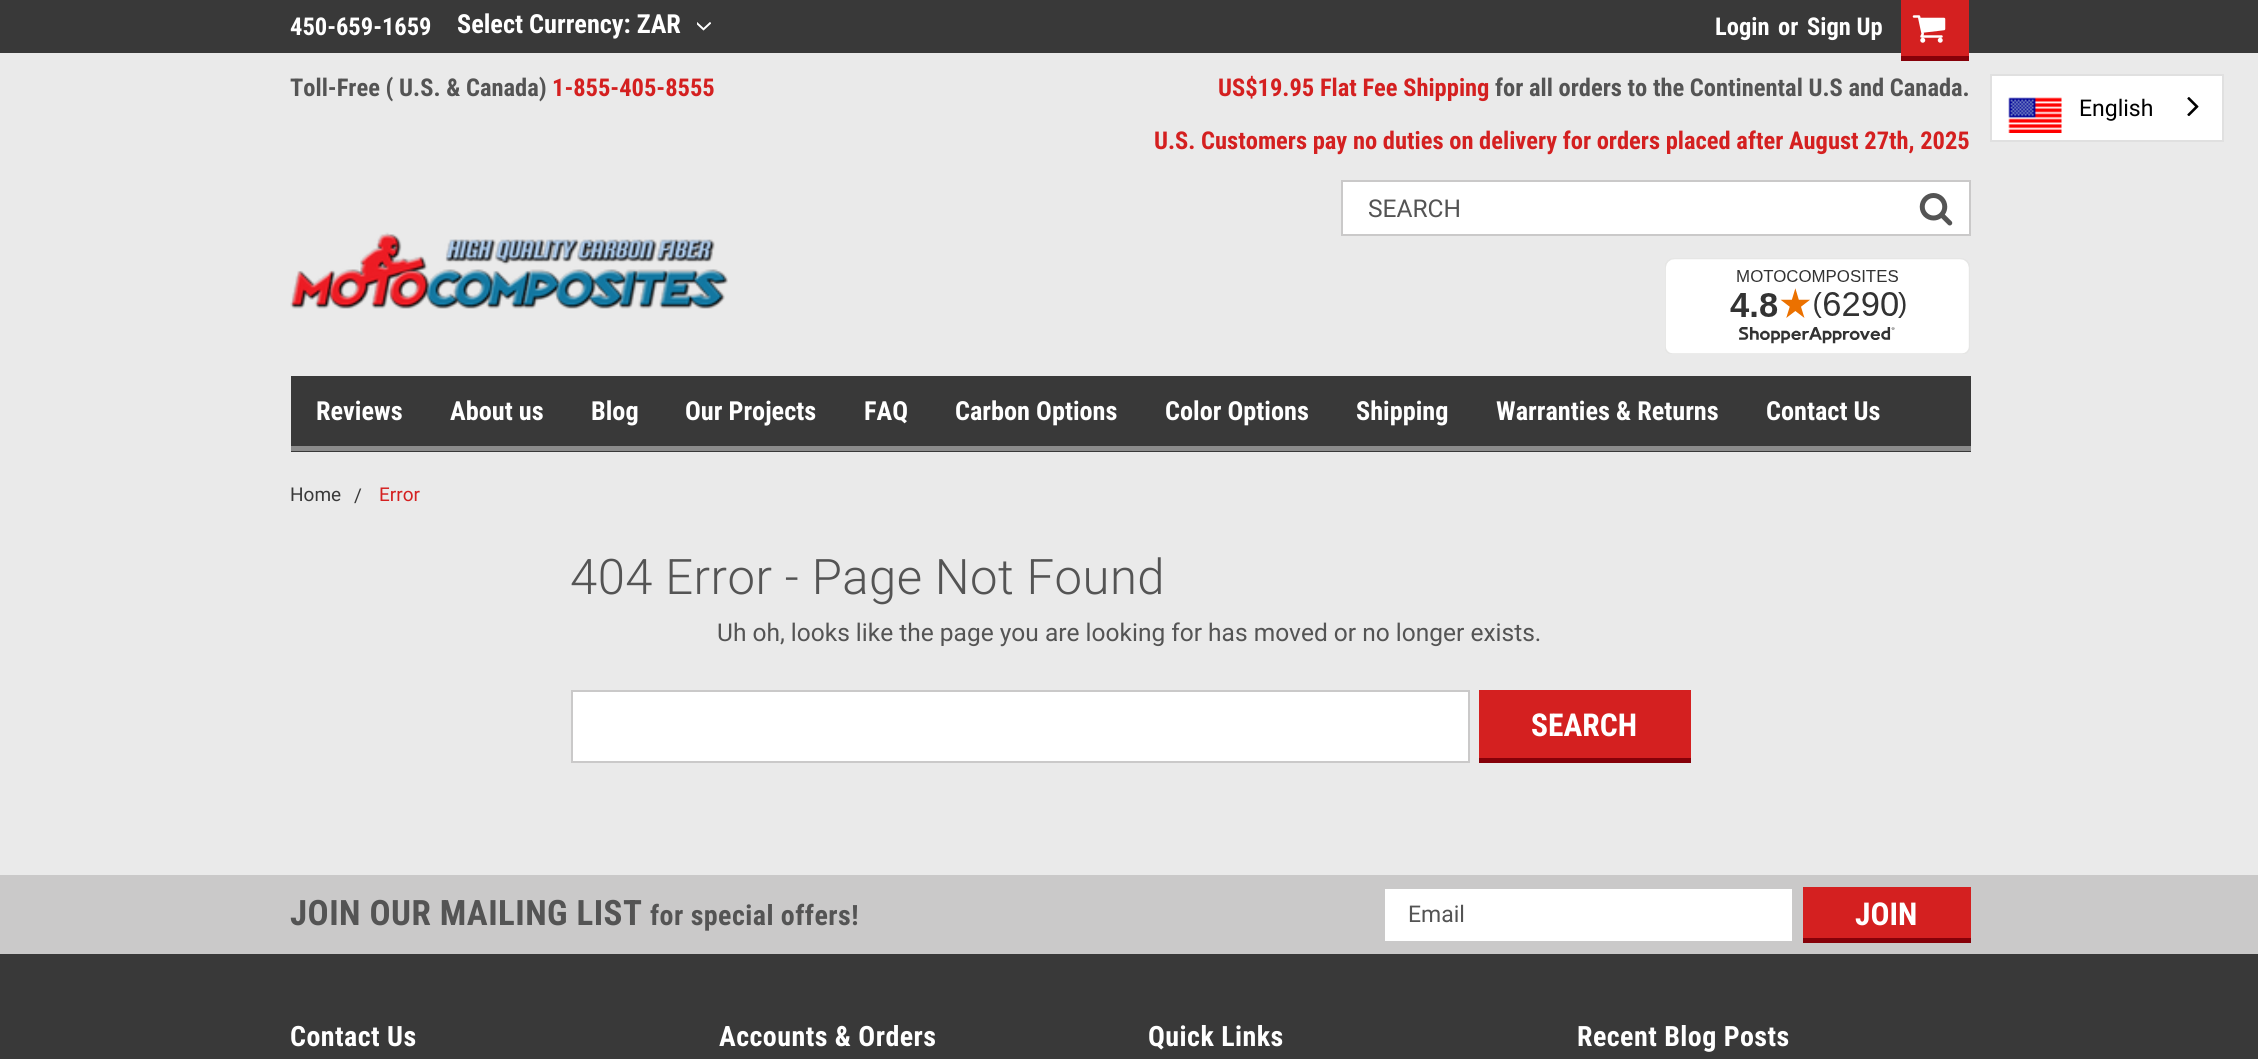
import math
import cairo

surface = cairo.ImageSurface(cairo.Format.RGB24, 2258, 1059)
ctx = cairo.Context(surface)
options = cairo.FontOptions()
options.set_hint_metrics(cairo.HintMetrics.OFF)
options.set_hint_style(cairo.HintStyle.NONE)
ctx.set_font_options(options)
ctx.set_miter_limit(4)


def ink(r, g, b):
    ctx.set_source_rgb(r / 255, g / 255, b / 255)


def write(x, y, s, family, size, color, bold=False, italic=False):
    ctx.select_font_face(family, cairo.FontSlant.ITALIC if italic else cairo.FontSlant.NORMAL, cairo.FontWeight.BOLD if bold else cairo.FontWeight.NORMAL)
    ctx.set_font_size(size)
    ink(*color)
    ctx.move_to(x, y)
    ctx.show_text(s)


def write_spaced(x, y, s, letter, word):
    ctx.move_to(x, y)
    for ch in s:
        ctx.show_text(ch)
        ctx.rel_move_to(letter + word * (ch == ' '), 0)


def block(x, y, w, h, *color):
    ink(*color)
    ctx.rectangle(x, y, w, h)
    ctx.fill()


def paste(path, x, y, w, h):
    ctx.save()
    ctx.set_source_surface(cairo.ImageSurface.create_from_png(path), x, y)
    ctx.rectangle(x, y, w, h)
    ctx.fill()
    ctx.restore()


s1 = dict(family="Roboto Condensed", size=24.5, color=(255, 255, 255), bold=True)
s2 = dict(family="Roboto Condensed", size=26.25, color=(255, 255, 255), bold=True)
s3 = dict(family="Roboto Condensed", size=24.5, color=(84, 84, 84), bold=True)
s4 = dict(family="Roboto Condensed", size=24.5, color=(212, 32, 32), bold=True)
s5 = dict(family="Roboto", size=24.5, color=(84, 84, 84))
s6 = dict(family="Roboto", size=23, color=(0, 0, 0))
s7 = dict(family="Roboto", size=19, color=(57, 57, 57))
s8 = dict(family="Roboto", size=19, color=(212, 32, 32))
s9 = dict(family="Roboto Condensed", size=31.5, color=(255, 255, 255), bold=True)
s10 = dict(family="Roboto", size=23, color=(84, 84, 84))

ink(234, 234, 234)
ctx.paint()
block(0, 0, 2258, 53, 57, 57, 57)
write(290, 35, "450-659-1659", **s1)
write(457, 33, "Select Currency: ZAR", **s2)
paste("pic1.png", 697, 22, 14, 9)
write(1715, 35, "Login", **s1)
write(1778, 35, "or", **s1)
write(1807, 35, "Sign Up", **s1)
block(1901, 0, 68, 56, 212, 32, 32)
block(1901, 56, 68, 5, 134, 1, 9)
paste("pic2.png", 1912, 15, 34, 28)
write(290, 96, "Toll-Free ( U.S. & Canada)", **s3)
write(552, 96, "1-855-405-8555", **s4)
write(1218, 96, "US$19.95 Flat Fee Shipping", **s4)
write(1495, 96, "for all orders to the Continental U.S and Canada.", **s3)
write(1154, 149, "U.S. Customers pay no duties on delivery for orders placed after August 27th, 2025", **s4)
ink(255, 255, 255)
ctx.rectangle(1342, 181, 628, 54)
ctx.fill_preserve()
ink(202, 201, 201)
ctx.stroke()
write(1368, 217, "SEARCH", **s5)
paste("pic3.png", 1919, 193, 34, 33)
paste("pic4.png", 1665, 258, 305, 96)
paste("pic5.png", 290, 232, 438, 77)
block(291, 376, 1680, 76, 57, 57, 57)
block(291, 446, 1680, 5, 139, 139, 139)
write(316, 420, "Reviews", **s2)
write(450, 420, "About us", **s2)
write(591, 420, "Blog", **s2)
write(685, 420, "Our Projects", **s2)
write(864, 420, "FAQ", **s2)
write(955, 420, "Carbon Options", **s2)
write(1165, 420, "Color Options", **s2)
write(1356, 420, "Shipping", **s2)
write(1496, 420, "Warranties & Returns", **s2)
write(1766, 420, "Contact Us", **s2)
ctx.rectangle(1991, 75, 232, 66)
ctx.fill_preserve()
ink(224, 224, 224)
ctx.stroke()
paste("pic6.png", 2008, 97, 54, 36)
write(2079, 116, "English", **s6)
paste("pic7.png", 2187, 97, 12, 19)
write(290, 501, "Home", **s7)
write(354, 502, "/", **s7)
write(379, 501, "Error", **s8)
ctx.select_font_face("Roboto Light")
ctx.set_font_size(49)
ink(84, 84, 84)
write_spaced(570, 594, "404 Error - Page Not Found", 0.45, 0)
write(717, 641, "Uh oh, looks like the page you are looking for has moved or no longer exists.", **s5)
ink(255, 255, 255)
ctx.rectangle(572, 691, 897, 71)
ctx.fill_preserve()
ink(202, 201, 201)
ctx.stroke()
block(1479, 690, 212, 68, 212, 32, 32)
block(1479, 758, 212, 5, 134, 1, 9)
write(1531, 736, "SEARCH", **s9)
block(0, 954, 2258, 105, 57, 57, 57)
block(0, 875, 2258, 79, 202, 201, 201)
ctx.set_font_size(35)
ink(84, 84, 84)
write_spaced(290, 925, "JOIN OUR MAILING LIST", 0.45, 0)
ctx.set_font_size(28)
write_spaced(650, 925, "for special offers!", 0.45, 0)
block(1385, 889, 407, 52, 255, 255, 255)
write(1408, 922, "Email", **s10)
block(1803, 887, 168, 51, 212, 32, 32)
block(1803, 938, 168, 5, 134, 1, 9)
write(1855, 925, "JOIN", **s9)
ctx.set_font_size(28)
write_spaced(290, 1046, "Contact Us", 0.45, 0)
write_spaced(719, 1046, "Accounts & Orders", 0.45, 0)
write_spaced(1148, 1046, "Quick Links", 0.45, 0)
write_spaced(1577, 1046, "Recent Blog Posts", 0.45, 0)
surface.write_to_png("screenshot.png")
